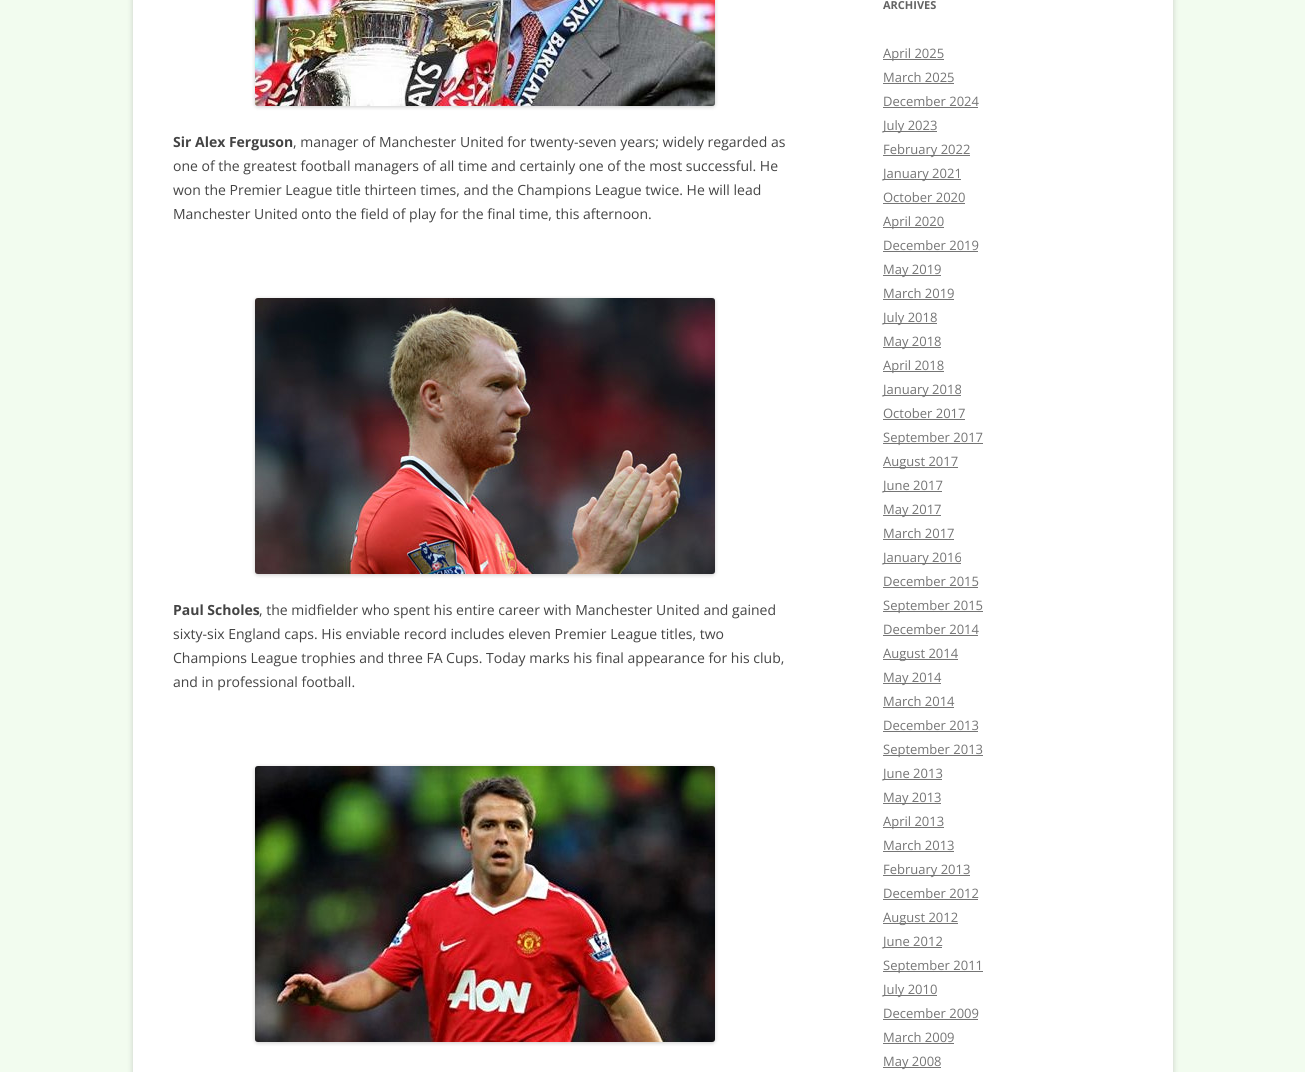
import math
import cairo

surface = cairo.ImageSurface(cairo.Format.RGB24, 1305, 1072)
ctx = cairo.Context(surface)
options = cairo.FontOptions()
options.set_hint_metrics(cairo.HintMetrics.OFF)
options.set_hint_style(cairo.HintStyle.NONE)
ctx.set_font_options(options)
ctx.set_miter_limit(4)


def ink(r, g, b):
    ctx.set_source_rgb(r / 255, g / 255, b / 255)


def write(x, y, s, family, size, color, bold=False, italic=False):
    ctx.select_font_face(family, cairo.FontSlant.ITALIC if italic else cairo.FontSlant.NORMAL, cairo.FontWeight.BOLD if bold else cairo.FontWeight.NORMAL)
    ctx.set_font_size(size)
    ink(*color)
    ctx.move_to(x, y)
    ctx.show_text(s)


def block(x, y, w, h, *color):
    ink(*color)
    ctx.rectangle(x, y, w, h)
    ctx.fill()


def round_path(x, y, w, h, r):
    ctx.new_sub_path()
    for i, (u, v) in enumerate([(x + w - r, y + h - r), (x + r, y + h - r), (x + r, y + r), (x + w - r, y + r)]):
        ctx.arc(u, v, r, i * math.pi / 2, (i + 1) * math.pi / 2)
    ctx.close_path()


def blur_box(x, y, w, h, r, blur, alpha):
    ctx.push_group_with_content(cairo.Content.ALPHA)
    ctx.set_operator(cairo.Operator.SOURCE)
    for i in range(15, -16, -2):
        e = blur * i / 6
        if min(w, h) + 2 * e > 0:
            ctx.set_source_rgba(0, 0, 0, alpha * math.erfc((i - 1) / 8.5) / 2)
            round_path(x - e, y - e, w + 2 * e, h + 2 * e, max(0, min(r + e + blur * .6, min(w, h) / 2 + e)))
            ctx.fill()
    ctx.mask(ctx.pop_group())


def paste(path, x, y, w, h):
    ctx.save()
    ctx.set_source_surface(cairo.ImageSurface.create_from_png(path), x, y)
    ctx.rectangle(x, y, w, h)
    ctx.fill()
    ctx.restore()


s1 = dict(family="Open Sans", size=14, color=(68, 68, 68), bold=True)
s2 = dict(family="Open Sans", size=14, color=(68, 68, 68))
s3 = dict(family="Open Sans", size=11, color=(99, 99, 99), bold=True)
s4 = dict(family="Open Sans", size=13, color=(117, 117, 117))

ink(242, 252, 239)
ctx.paint()
ink(100, 100, 100)
blur_box(133, -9, 1040, 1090, 0, 3, 0.3)
block(133, 0, 1040, 1072, 255, 255, 255)
ink(0, 0, 0)
blur_box(255, -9, 460, 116, 3, 2, 0.2)
paste("pic1.png", 255, 0, 460, 106)
write(173, 147, "Sir Alex Ferguson", **s1)
write(293, 147, ", manager of Manchester United for twenty-seven years; widely regarded as", **s2)
write(173, 171, "one of the greatest football managers of all time and certainly one of the most successful. He", **s2)
write(173, 195, "won the Premier League title thirteen times, and the Champions League twice. He will lead", **s2)
write(173, 219, "Manchester United onto the field of play for the final time, this afternoon.", **s2)
ink(0, 0, 0)
blur_box(255, 299, 460, 276, 3, 2, 0.2)
paste("pic2.png", 255, 298, 460, 276)
write(173, 615, "Paul Scholes", **s1)
write(259, 615, ", the midfielder who spent his entire career with Manchester United and gained", **s2)
write(173, 639, "sixty-six England caps. His enviable record includes eleven Premier League titles, two", **s2)
write(173, 663, "Champions League trophies and three FA Cups. Today marks his final appearance for his club,", **s2)
write(173, 687, "and in professional football.", **s2)
ink(0, 0, 0)
blur_box(255, 767, 460, 276, 3, 2, 0.2)
paste("pic3.png", 255, 766, 460, 276)
write(883, 9, "ARCHIVES", **s3)
block(883, 59, 61, 1, 117, 117, 117)
write(883, 58, "April 2025", **s4)
write(883, 82, "March 2025", **s4)
block(883, 83, 71, 1, 117, 117, 117)
write(883, 106, "December 2024", **s4)
block(883, 107, 95, 1, 117, 117, 117)
block(883, 131, 54, 1, 117, 117, 117)
write(883, 130, "July 2023", **s4)
block(883, 155, 87, 1, 117, 117, 117)
write(883, 154, "February 2022", **s4)
block(883, 179, 78, 1, 117, 117, 117)
write(883, 178, "January 2021", **s4)
write(883, 202, "October 2020", **s4)
block(883, 203, 82, 1, 117, 117, 117)
block(883, 227, 61, 1, 117, 117, 117)
write(883, 226, "April 2020", **s4)
write(883, 250, "December 2019", **s4)
block(883, 251, 95, 1, 117, 117, 117)
block(883, 275, 58, 1, 117, 117, 117)
write(883, 274, "May 2019", **s4)
write(883, 298, "March 2019", **s4)
block(883, 299, 71, 1, 117, 117, 117)
block(883, 323, 54, 1, 117, 117, 117)
write(883, 322, "July 2018", **s4)
block(883, 347, 58, 1, 117, 117, 117)
write(883, 346, "May 2018", **s4)
block(883, 371, 61, 1, 117, 117, 117)
write(883, 370, "April 2018", **s4)
block(883, 395, 78, 1, 117, 117, 117)
write(883, 394, "January 2018", **s4)
write(883, 418, "October 2017", **s4)
block(883, 419, 82, 1, 117, 117, 117)
block(883, 443, 100, 1, 117, 117, 117)
write(883, 442, "September 2017", **s4)
block(883, 467, 75, 1, 117, 117, 117)
write(883, 466, "August 2017", **s4)
block(883, 491, 59, 1, 117, 117, 117)
write(883, 490, "June 2017", **s4)
block(883, 515, 58, 1, 117, 117, 117)
write(883, 514, "May 2017", **s4)
write(883, 538, "March 2017", **s4)
block(883, 539, 71, 1, 117, 117, 117)
block(883, 563, 78, 1, 117, 117, 117)
write(883, 562, "January 2016", **s4)
write(883, 586, "December 2015", **s4)
block(883, 587, 95, 1, 117, 117, 117)
block(883, 611, 100, 1, 117, 117, 117)
write(883, 610, "September 2015", **s4)
write(883, 634, "December 2014", **s4)
block(883, 635, 95, 1, 117, 117, 117)
block(883, 659, 75, 1, 117, 117, 117)
write(883, 658, "August 2014", **s4)
block(883, 683, 58, 1, 117, 117, 117)
write(883, 682, "May 2014", **s4)
write(883, 706, "March 2014", **s4)
block(883, 707, 71, 1, 117, 117, 117)
write(883, 730, "December 2013", **s4)
block(883, 731, 95, 1, 117, 117, 117)
block(883, 755, 100, 1, 117, 117, 117)
write(883, 754, "September 2013", **s4)
block(883, 779, 59, 1, 117, 117, 117)
write(883, 778, "June 2013", **s4)
block(883, 803, 58, 1, 117, 117, 117)
write(883, 802, "May 2013", **s4)
block(883, 827, 61, 1, 117, 117, 117)
write(883, 826, "April 2013", **s4)
write(883, 850, "March 2013", **s4)
block(883, 851, 71, 1, 117, 117, 117)
block(883, 875, 87, 1, 117, 117, 117)
write(883, 874, "February 2013", **s4)
write(883, 898, "December 2012", **s4)
block(883, 899, 95, 1, 117, 117, 117)
block(883, 923, 75, 1, 117, 117, 117)
write(883, 922, "August 2012", **s4)
block(883, 947, 59, 1, 117, 117, 117)
write(883, 946, "June 2012", **s4)
block(883, 971, 100, 1, 117, 117, 117)
write(883, 970, "September 2011", **s4)
block(883, 995, 54, 1, 117, 117, 117)
write(883, 994, "July 2010", **s4)
write(883, 1018, "December 2009", **s4)
block(883, 1019, 95, 1, 117, 117, 117)
write(883, 1042, "March 2009", **s4)
block(883, 1043, 71, 1, 117, 117, 117)
block(883, 1067, 58, 1, 117, 117, 117)
write(883, 1066, "May 2008", **s4)
surface.write_to_png("screenshot.png")
